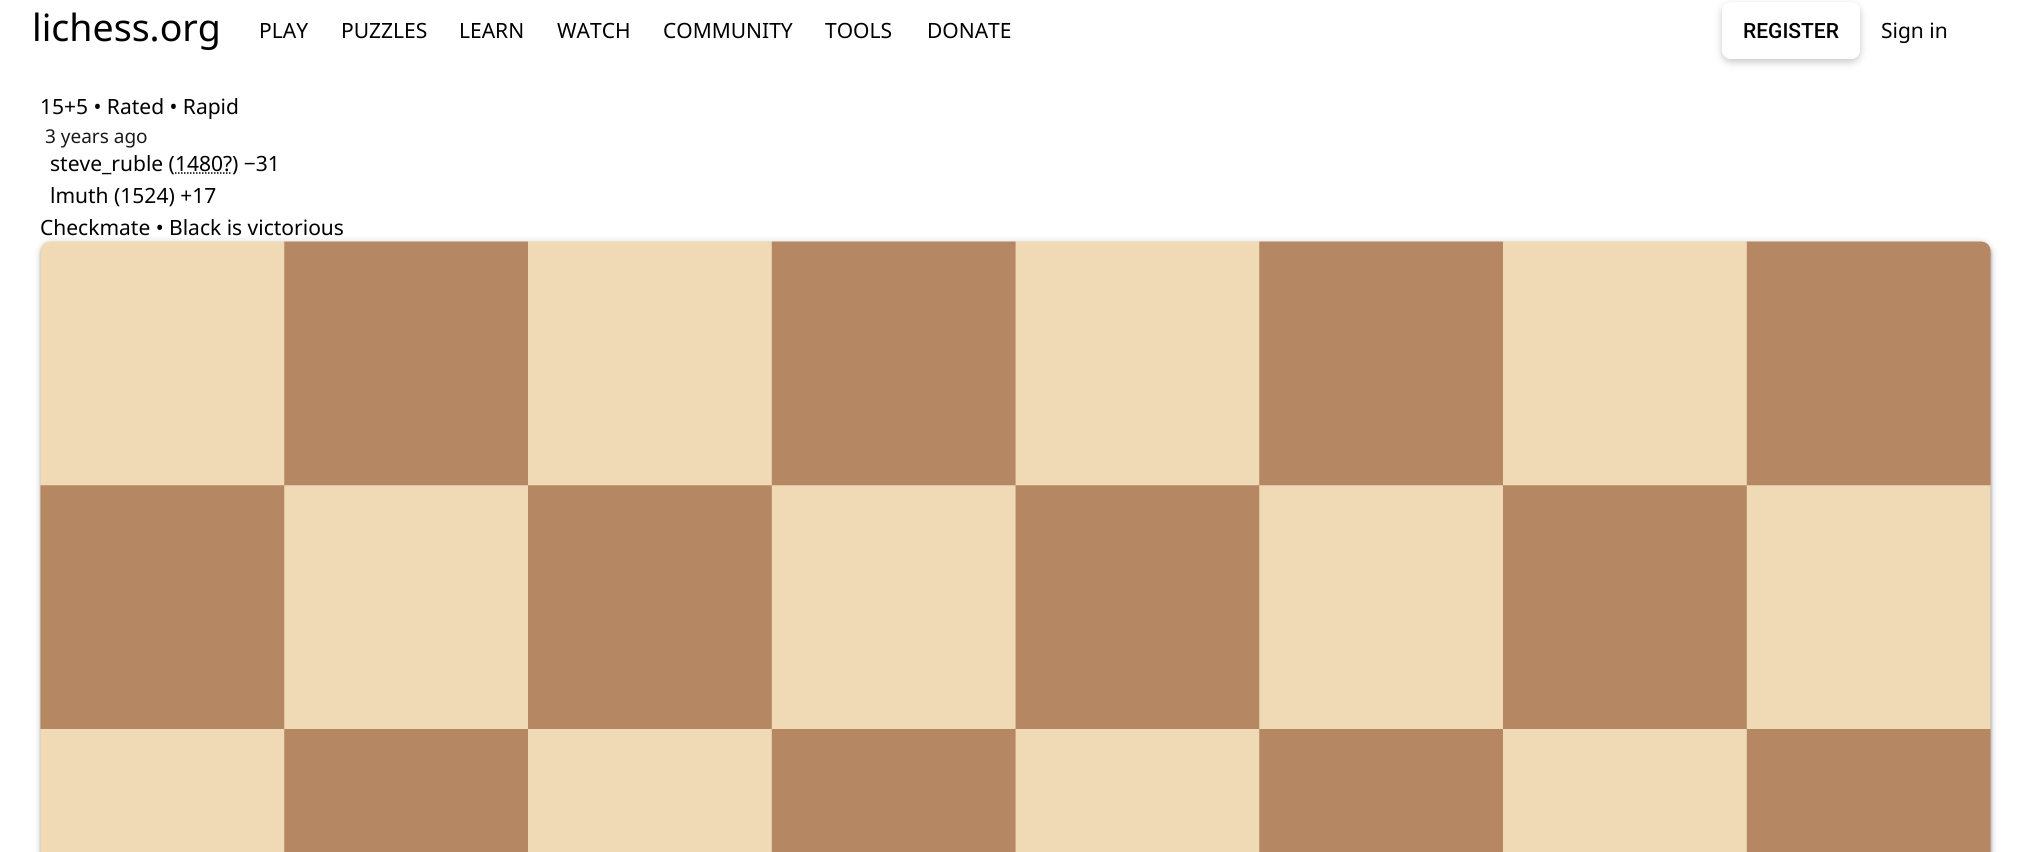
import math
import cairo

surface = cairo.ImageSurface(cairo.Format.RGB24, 2029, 852)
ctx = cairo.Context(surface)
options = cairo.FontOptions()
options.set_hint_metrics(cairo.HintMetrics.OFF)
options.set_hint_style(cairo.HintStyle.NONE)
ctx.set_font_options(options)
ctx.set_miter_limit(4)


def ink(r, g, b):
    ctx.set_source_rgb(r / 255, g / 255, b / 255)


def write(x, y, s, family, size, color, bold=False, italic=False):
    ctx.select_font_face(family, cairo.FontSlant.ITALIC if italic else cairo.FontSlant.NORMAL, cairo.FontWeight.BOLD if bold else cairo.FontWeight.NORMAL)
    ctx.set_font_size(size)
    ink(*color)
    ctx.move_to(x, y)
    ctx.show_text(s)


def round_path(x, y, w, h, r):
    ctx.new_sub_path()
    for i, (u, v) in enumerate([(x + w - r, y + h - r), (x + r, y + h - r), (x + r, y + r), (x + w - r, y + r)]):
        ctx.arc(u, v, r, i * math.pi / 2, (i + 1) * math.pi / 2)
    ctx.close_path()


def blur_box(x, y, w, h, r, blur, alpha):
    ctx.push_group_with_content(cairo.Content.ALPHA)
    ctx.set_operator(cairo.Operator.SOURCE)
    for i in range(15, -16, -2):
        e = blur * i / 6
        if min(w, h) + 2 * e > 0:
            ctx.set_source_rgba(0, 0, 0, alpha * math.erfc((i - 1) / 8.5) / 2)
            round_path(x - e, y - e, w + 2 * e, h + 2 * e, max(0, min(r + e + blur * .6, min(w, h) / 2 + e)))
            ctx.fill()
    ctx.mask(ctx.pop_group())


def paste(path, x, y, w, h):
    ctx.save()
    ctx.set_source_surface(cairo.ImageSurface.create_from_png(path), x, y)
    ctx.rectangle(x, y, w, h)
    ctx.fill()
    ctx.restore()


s1 = dict(family="Noto Sans", size=37.5, color=(0, 0, 0))
s2 = dict(family="Noto Sans", size=21, color=(0, 0, 0))
s3 = dict(family="Roboto Medium", size=21, color=(0, 0, 0))
s4 = dict(family="Noto Sans", size=19, color=(26, 26, 26))

ink(255, 255, 255)
ctx.paint()
write(32, 41, "lichess.org", **s1)
write(259, 38, "PLAY", **s2)
write(341, 38, "PUZZLES", **s2)
write(459, 38, "LEARN", **s2)
write(557, 38, "WATCH", **s2)
write(663, 38, "COMMUNITY", **s2)
write(825, 38, "TOOLS", **s2)
write(927, 38, "DONATE", **s2)
ctx.save()
ctx.set_fill_rule(cairo.FillRule.EVEN_ODD)
ctx.new_path()
ctx.move_to(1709, 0)
ctx.line_to(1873, 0)
ctx.line_to(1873, 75)
ctx.line_to(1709, 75)
ctx.close_path()
ctx.move_to(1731, 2)
ctx.line_to(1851, 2)
ctx.curve_to(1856, 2, 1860, 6, 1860, 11)
ctx.line_to(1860, 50)
ctx.curve_to(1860, 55, 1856, 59, 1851, 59)
ctx.line_to(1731, 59)
ctx.curve_to(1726, 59, 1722, 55, 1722, 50)
ctx.line_to(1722, 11)
ctx.curve_to(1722, 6, 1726, 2, 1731, 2)
ctx.close_path()
ctx.clip()
ink(0, 0, 0)
blur_box(1722, 5, 138, 57, 9, 4, 0.22)
ctx.restore()
write(1743, 38, "REGISTER", **s3)
write(1881, 38, "Sign in", **s2)
write(40, 114, "15+5 • Rated • Rapid", **s2)
write(45, 143, "3 years ago", **s4)
write(50, 171, "steve_ruble (1480?) −31", **s2)
ctx.new_path()
ctx.move_to(175, 173)
ctx.line_to(232, 173)
ctx.set_line_width(1.5)
ctx.set_dash([1.5, 1.5])
ctx.stroke()
write(50, 203, "lmuth (1524) +17", **s2)
write(40, 235, "Checkmate • Black is victorious", **s2)
ink(0, 0, 0)
blur_box(41, 243, 1950, 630, 9, 4, 0.12)
blur_box(41, 245, 1950, 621, 9, 1.5, 0.14)
blur_box(41, 243, 1950, 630, 9, 4, 0.12)
blur_box(41, 245, 1950, 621, 9, 1.5, 0.14)
paste("pic1.png", 40, 241, 1951, 611)
surface.write_to_png("screenshot.png")
